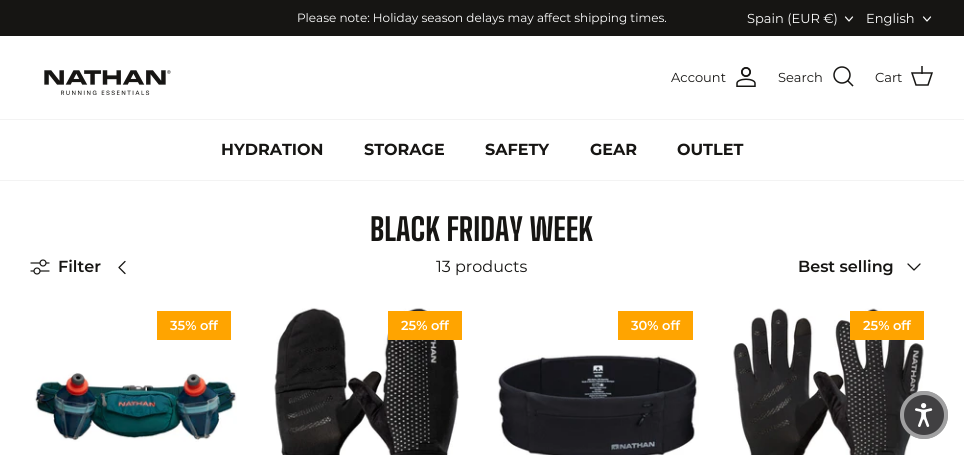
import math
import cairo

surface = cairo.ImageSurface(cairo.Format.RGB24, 964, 455)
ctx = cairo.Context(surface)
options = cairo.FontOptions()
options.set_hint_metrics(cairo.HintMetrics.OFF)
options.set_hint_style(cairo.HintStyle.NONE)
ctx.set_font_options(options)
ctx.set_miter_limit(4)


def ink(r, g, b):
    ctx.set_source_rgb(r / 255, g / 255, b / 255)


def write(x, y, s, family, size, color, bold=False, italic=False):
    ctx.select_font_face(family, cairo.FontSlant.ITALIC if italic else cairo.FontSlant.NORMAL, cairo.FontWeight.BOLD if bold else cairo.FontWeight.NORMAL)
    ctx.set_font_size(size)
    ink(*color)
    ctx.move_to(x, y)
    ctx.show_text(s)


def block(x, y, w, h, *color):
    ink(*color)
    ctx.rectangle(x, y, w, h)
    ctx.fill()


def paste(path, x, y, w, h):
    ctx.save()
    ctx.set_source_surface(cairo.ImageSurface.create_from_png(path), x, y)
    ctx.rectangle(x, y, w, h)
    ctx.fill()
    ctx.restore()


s1 = dict(family="Montserrat", size=12, color=(255, 255, 255))
s2 = dict(family="Montserrat", size=13, color=(255, 255, 255))
s3 = dict(family="Montserrat", size=13, color=(22, 21, 19))
s4 = dict(family="Montserrat", size=16, color=(22, 21, 19), bold=True)
s5 = dict(family="Big Shoulders", size=31, color=(22, 21, 19), bold=True)
s6 = dict(family="Montserrat SemiBold", size=16, color=(22, 21, 19))
s7 = dict(family="Montserrat", size=16, color=(22, 21, 19))
s8 = dict(family="Montserrat SemiBold", size=13, color=(255, 255, 255))

ink(255, 255, 255)
ctx.paint()
block(0, 0, 964, 36, 22, 21, 19)
write(297, 22, "Please note: Holiday season delays may affect shipping times.", **s1)
write(747, 23, "Spain (EUR €)", **s2)
ctx.new_path()
ctx.move_to(845.5, 17)
ctx.line_to(849, 21)
ctx.line_to(852.5, 17)
ctx.set_line_width(1.2)
ctx.set_line_cap(cairo.LineCap.ROUND)
ctx.set_line_join(cairo.LineJoin.ROUND)
ctx.stroke()
write(866, 23, "English", **s2)
ctx.new_path()
ctx.move_to(923.5, 17)
ctx.line_to(927, 21)
ctx.line_to(930.5, 17)
ctx.stroke()
block(0, 119, 964, 1, 243, 243, 243)
paste("pic1.png", 44, 70, 127, 25)
write(671, 82, "Account", **s3)
paste("pic2.png", 736, 67, 20, 20)
write(778, 82, "Search", **s3)
ctx.new_path()
ctx.arc(842, 75, 8, 0, 2 * math.pi)
ctx.set_line_width(1.5)
ctx.set_line_cap(cairo.LineCap.BUTT)
ctx.set_line_join(cairo.LineJoin.MITER)
ctx.stroke()
ctx.new_path()
ctx.move_to(848, 81)
ctx.line_to(852.5, 85.5)
ctx.set_line_cap(cairo.LineCap.SQUARE)
ctx.stroke()
write(875, 82, "Cart", **s3)
ctx.new_path()
ctx.move_to(912, 73)
ctx.line_to(932, 73)
ctx.line_to(928, 85)
ctx.line_to(916, 85)
ctx.close_path()
ctx.set_line_cap(cairo.LineCap.BUTT)
ctx.stroke()
ctx.set_source_rgba(0.086, 0.082, 0.075, 0.75)
ctx.rectangle(921, 66, 2, 8)
ctx.fill()
block(0, 180, 964, 1, 243, 243, 243)
write(221, 155, "HYDRATION", **s4)
write(364, 155, "STORAGE", **s4)
write(485, 155, "SAFETY", **s4)
write(590, 155, "GEAR", **s4)
write(677, 155, "OUTLET", **s4)
write(370, 241, "BLACK FRIDAY WEEK", **s5)
paste("pic3.png", 30, 259, 20, 16)
write(58, 272, "Filter", **s6)
ctx.new_path()
ctx.move_to(125, 261.5)
ctx.line_to(119, 267.5)
ctx.line_to(125, 273.5)
ctx.set_line_width(1.3)
ctx.set_line_cap(cairo.LineCap.ROUND)
ctx.set_line_join(cairo.LineJoin.ROUND)
ctx.stroke()
write(436, 272, "13 products", **s7)
write(798, 272, "Best selling", **s6)
ctx.new_path()
ctx.move_to(908, 264)
ctx.line_to(914, 270)
ctx.line_to(920, 264)
ctx.stroke()
block(157, 311, 74, 29, 255, 164, 0)
write(170, 330, "35% off", **s8)
paste("pic4.png", 34, 372, 203, 70)
paste("pic5.png", 274, 307, 185, 148)
block(388, 311, 74, 29, 255, 164, 0)
write(401, 330, "25% off", **s8)
block(618, 311, 75, 29, 255, 164, 0)
write(631, 330, "30% off", **s8)
paste("pic6.png", 497, 355, 202, 100)
paste("pic7.png", 733, 308, 191, 147)
block(850, 311, 74, 29, 255, 164, 0)
write(863, 330, "25% off", **s8)
ink(65, 64, 66)
ctx.new_path()
ctx.arc(924, 415, 24, 0, 2 * math.pi)
ctx.fill()
ctx.arc(924, 415, 22, 0, 2 * math.pi)
ctx.set_source_rgba(1, 1, 1, 0.5)
ctx.set_line_width(4)
ctx.set_line_cap(cairo.LineCap.BUTT)
ctx.set_line_join(cairo.LineJoin.MITER)
ctx.stroke()
paste("pic8.png", 915, 403, 18, 24)
surface.write_to_png("screenshot.png")
